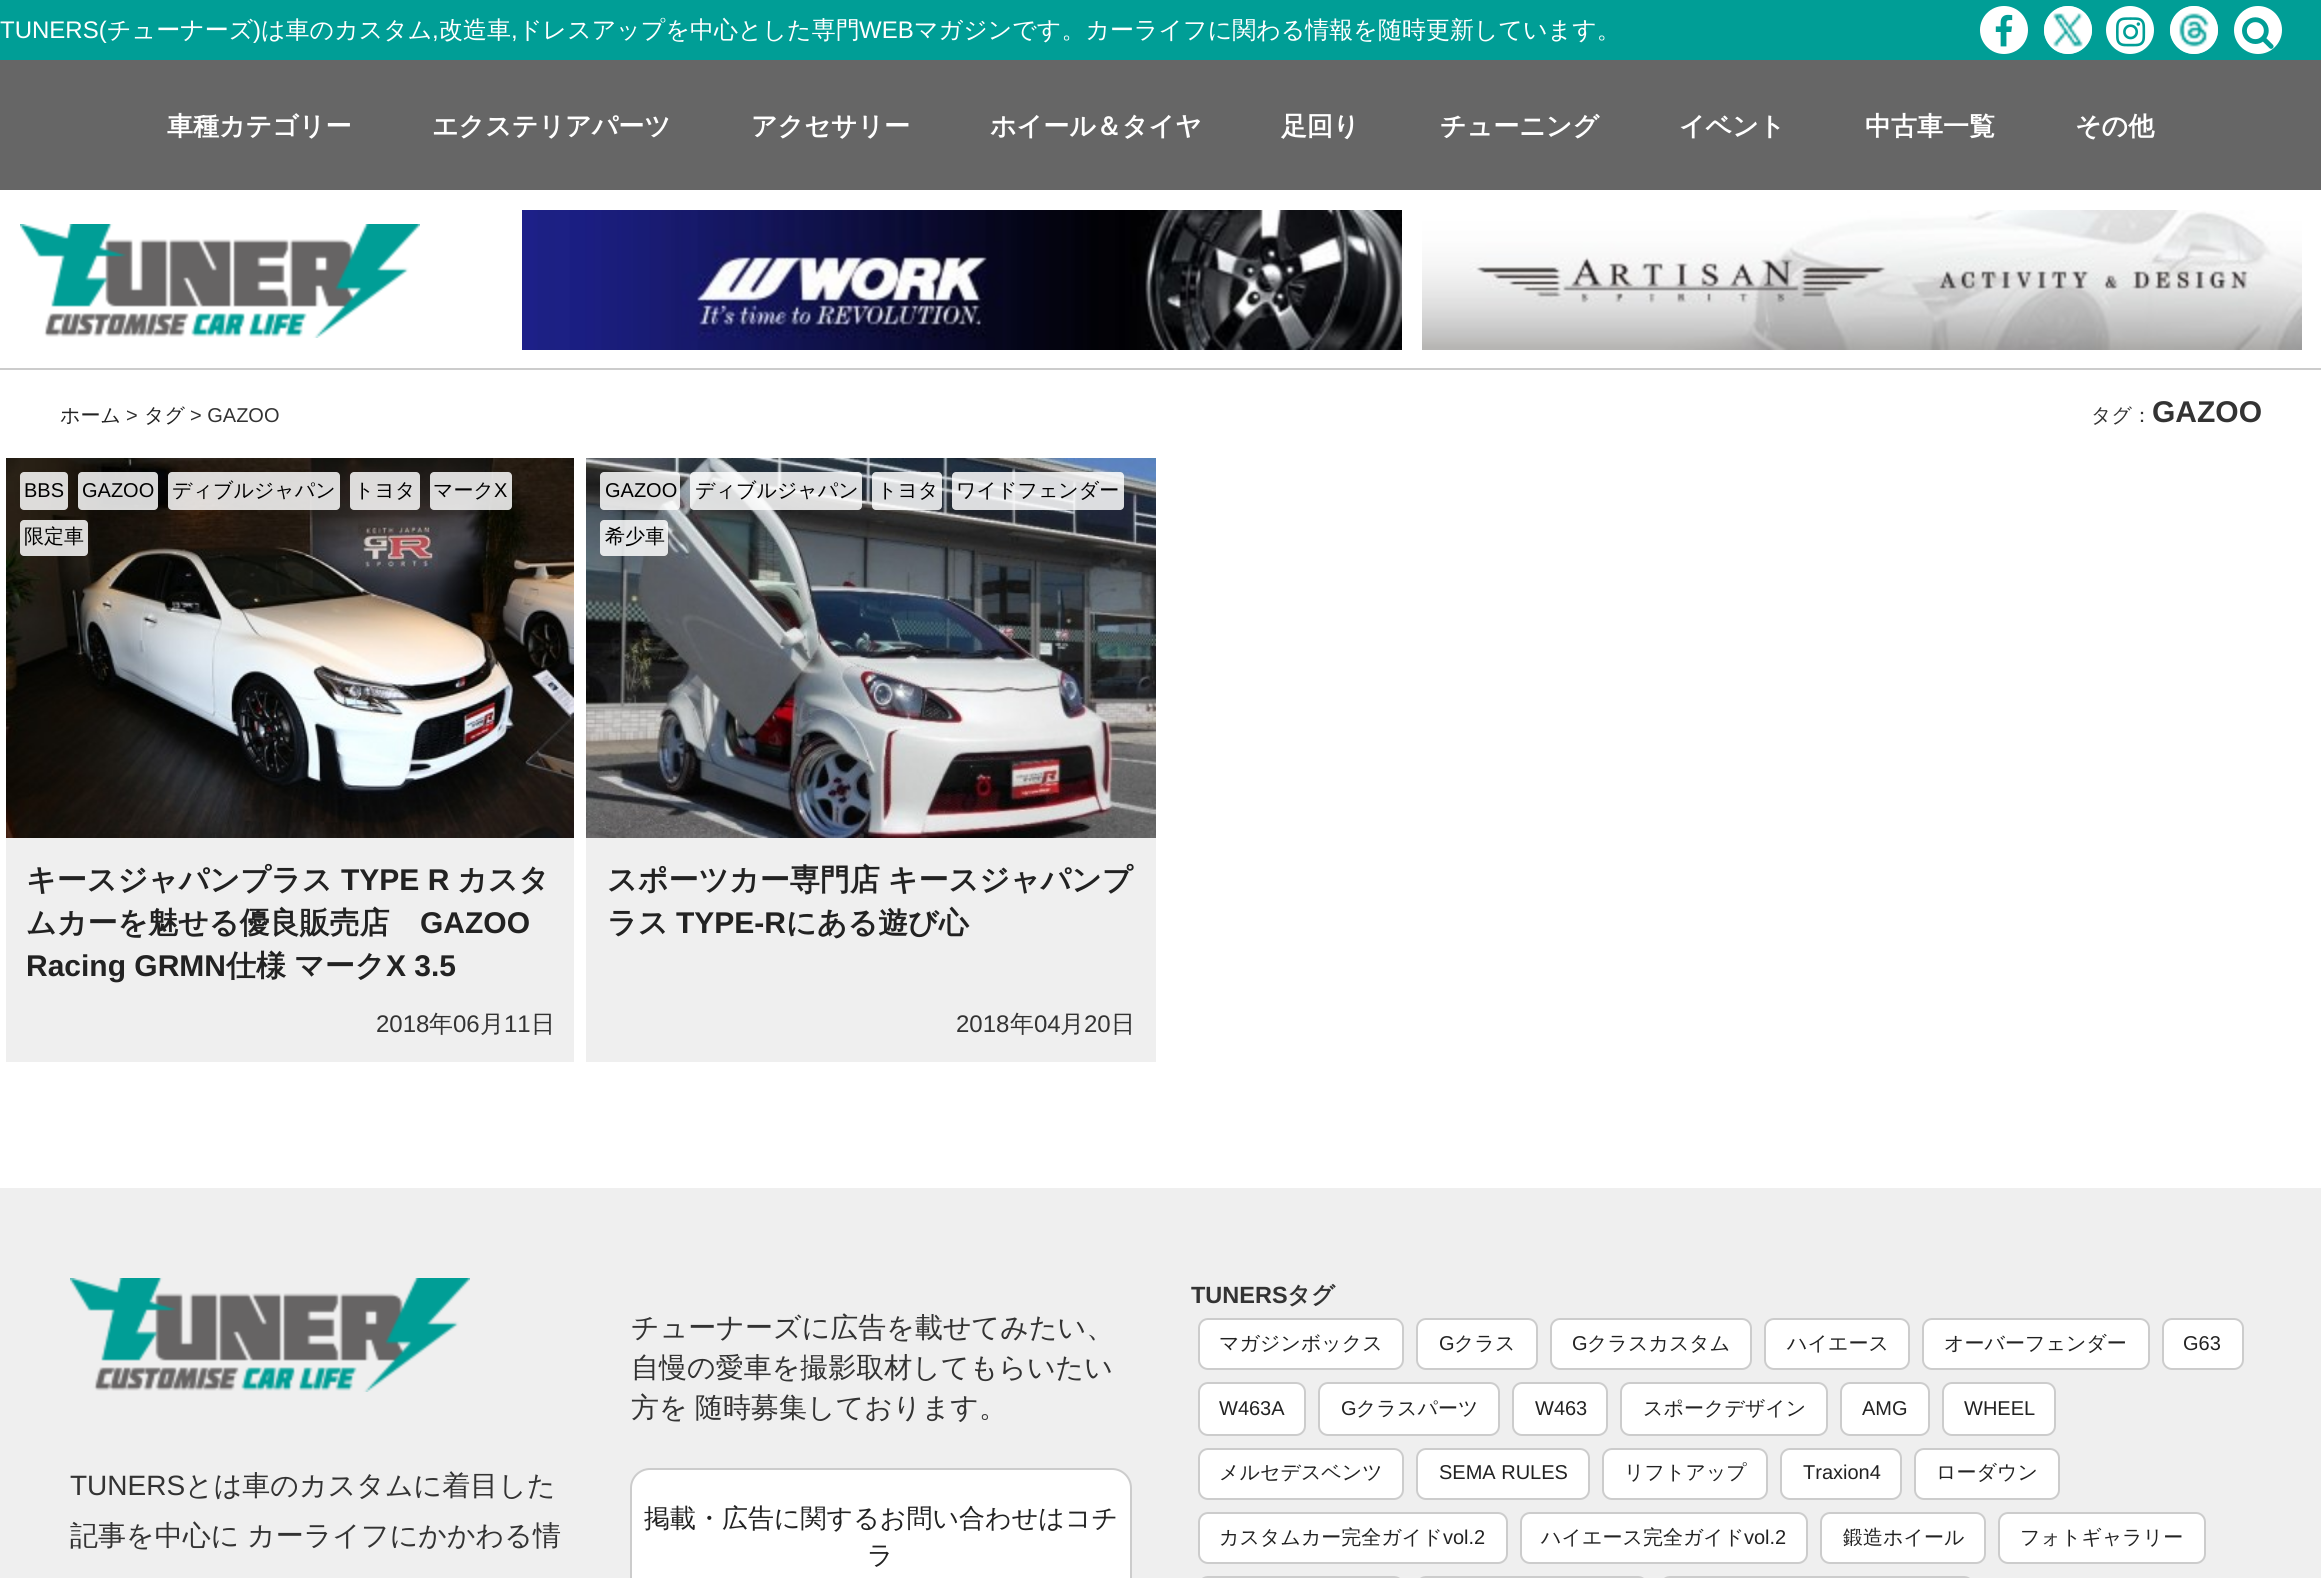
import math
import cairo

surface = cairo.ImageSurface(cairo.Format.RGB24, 2321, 1578)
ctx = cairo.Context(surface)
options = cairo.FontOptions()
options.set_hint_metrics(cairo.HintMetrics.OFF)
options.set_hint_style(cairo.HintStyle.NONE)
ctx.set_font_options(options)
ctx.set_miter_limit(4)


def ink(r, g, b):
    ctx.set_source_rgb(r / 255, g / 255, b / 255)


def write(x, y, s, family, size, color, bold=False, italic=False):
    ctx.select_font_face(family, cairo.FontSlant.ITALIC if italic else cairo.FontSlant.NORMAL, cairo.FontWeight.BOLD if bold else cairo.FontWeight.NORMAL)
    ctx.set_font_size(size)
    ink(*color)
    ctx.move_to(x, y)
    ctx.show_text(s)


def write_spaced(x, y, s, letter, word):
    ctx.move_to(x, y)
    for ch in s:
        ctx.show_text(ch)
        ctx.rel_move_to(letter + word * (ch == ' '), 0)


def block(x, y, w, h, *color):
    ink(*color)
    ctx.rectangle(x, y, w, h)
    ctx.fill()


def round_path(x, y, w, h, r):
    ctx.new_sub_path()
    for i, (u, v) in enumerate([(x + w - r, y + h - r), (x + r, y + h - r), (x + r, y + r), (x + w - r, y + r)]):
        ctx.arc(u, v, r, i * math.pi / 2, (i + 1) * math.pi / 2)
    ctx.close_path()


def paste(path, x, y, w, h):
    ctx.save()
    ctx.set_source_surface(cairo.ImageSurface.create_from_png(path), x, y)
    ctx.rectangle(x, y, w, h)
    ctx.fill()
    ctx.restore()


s1 = dict(family="Liberation Sans", size=24, color=(255, 255, 255))
s2 = dict(family="WenQuanYi Zen Hei Medium", size=24, color=(255, 255, 255))
s3 = dict(family="WenQuanYi Zen Hei", size=26, color=(255, 255, 255), bold=True)
s4 = dict(family="WenQuanYi Zen Hei Medium", size=20, color=(34, 34, 34))
s5 = dict(family="Liberation Sans", size=20, color=(51, 51, 51))
s6 = dict(family="WenQuanYi Zen Hei Medium", size=20, color=(51, 51, 51))
s7 = dict(family="Liberation Sans", size=30, color=(51, 51, 51), bold=True)
s8 = dict(family="Liberation Sans", size=20, color=(0, 0, 0))
s9 = dict(family="WenQuanYi Zen Hei Medium", size=20, color=(0, 0, 0))
s10 = dict(family="WenQuanYi Zen Hei", size=30, color=(34, 34, 34), bold=True)
s11 = dict(family="Liberation Sans", size=30, color=(34, 34, 34), bold=True)
s12 = dict(family="Liberation Sans", size=24, color=(51, 51, 51))
s13 = dict(family="WenQuanYi Zen Hei Medium", size=24, color=(51, 51, 51))
s14 = dict(family="Liberation Sans", size=28, color=(51, 51, 51))
s15 = dict(family="WenQuanYi Zen Hei Medium", size=28, color=(51, 51, 51))
s16 = dict(family="WenQuanYi Zen Hei Medium", size=26, color=(34, 34, 34))
s17 = dict(family="Liberation Sans", size=23.5, color=(51, 51, 51), bold=True)
s18 = dict(family="WenQuanYi Zen Hei", size=23.5, color=(51, 51, 51), bold=True)
s19 = dict(family="Liberation Sans", size=20, color=(34, 34, 34))

ink(255, 255, 255)
ctx.paint()
block(0, 0, 2321, 60, 0, 158, 150)
write(0, 38, "TUNERS(", **s1)
write(107, 38, "チューナーズ", **s2)
write(253, 38, ")", **s1)
write(261, 38, "は車のカスタム", **s2)
write(432, 38, ",", **s1)
write(439, 38, "改造車", **s2)
write(511, 38, ",", **s1)
write(518, 38, "ドレスアップを中心とした専門", **s2)
write(859, 38, "WEB", **s1)
write(914, 38, "マガジンです。カーライフに関わる情報を随時更新しています。", **s2)
ctx.new_path()
ctx.arc(2004, 30, 24, 0, 2 * math.pi)
ctx.fill()
paste("pic1.png", 1995, 14, 18, 33)
ctx.arc(2068, 30, 24, 0, 2 * math.pi)
ctx.fill()
paste("pic2.png", 2044, 6, 48, 48)
ctx.arc(2130, 30, 24, 0, 2 * math.pi)
ctx.fill()
paste("pic3.png", 2116, 17, 30, 30)
ctx.arc(2194, 30, 24, 0, 2 * math.pi)
ctx.fill()
paste("pic4.png", 2170, 6, 48, 48)
ctx.arc(2258, 30, 24, 0, 2 * math.pi)
ctx.fill()
paste("pic5.png", 2242, 17, 32, 32)
block(0, 60, 2321, 130, 102, 102, 102)
write(167, 135, "車種カテゴリー", **s3)
write(432, 135, "エクステリアパーツ", **s3)
write(751, 135, "アクセサリー", **s3)
write(990, 135, "ホイール＆タイヤ", **s3)
write(1281, 135, "足回り", **s3)
write(1440, 135, "チューニング", **s3)
write(1679, 135, "イベント", **s3)
write(1865, 135, "中古車一覧", **s3)
write(2075, 135, "その他", **s3)
block(0, 368, 2321, 2, 204, 204, 204)
paste("pic6.png", 20, 224, 400, 114)
paste("pic7.png", 522, 210, 880, 140)
paste("pic8.png", 1422, 210, 880, 140)
write(60, 422, "ホーム", **s4)
write(126, 422, ">", **s5)
write(144, 422, "タグ", **s4)
write(190, 422, "> GAZOO", **s5)
write(2091, 422, "タグ：", **s6)
write(2152, 422, "GAZOO", **s7)
paste("pic9.png", 6, 458, 568, 380)
block(6, 838, 568, 224, 239, 239, 239)
ctx.set_source_rgba(1, 1, 1, 0.84)
round_path(20, 472, 48, 38, 4)
ctx.fill()
write(24, 497, "BBS", **s8)
ctx.set_source_rgba(1, 1, 1, 0.84)
round_path(78, 472, 80, 38, 4)
ctx.fill()
write(82, 497, "GAZOO", **s8)
ctx.set_source_rgba(1, 1, 1, 0.84)
round_path(168, 472, 172, 38, 4)
ctx.fill()
write(172, 497, "ディブルジャパン", **s9)
ctx.set_source_rgba(1, 1, 1, 0.84)
round_path(350, 472, 70, 38, 4)
ctx.fill()
write(354, 497, "トヨタ", **s9)
ctx.set_source_rgba(1, 1, 1, 0.84)
round_path(430, 472, 82, 38, 4)
ctx.fill()
write(433, 497, "マーク", **s9)
write(494, 497, "X", **s8)
ctx.set_source_rgba(1, 1, 1, 0.84)
round_path(20, 520, 68, 36, 4)
ctx.fill()
write(24, 543, "限定車", **s9)
write(26, 890, "キースジャパンプラス", **s10)
write(341, 890, "TYPE R", **s11)
write(457, 890, "カスタ", **s10)
write(26, 933, "ムカーを魅せる優良販売店", **s10)
write(420, 933, "GAZOO", **s11)
write(26, 976, "Racing GRMN", **s11)
write(226, 976, "仕様", **s10)
write(294, 976, "マーク", **s10)
write(386, 976, "X 3.5", **s11)
write(376, 1032, "2018", **s12)
write(429, 1032, "年", **s13)
write(453, 1032, "06", **s12)
write(480, 1032, "月", **s13)
write(504, 1032, "11", **s12)
write(531, 1032, "日", **s13)
paste("pic10.png", 586, 458, 570, 380)
block(586, 838, 570, 224, 239, 239, 239)
ctx.set_source_rgba(1, 1, 1, 0.84)
round_path(600, 472, 80, 38, 4)
ctx.fill()
write(605, 497, "GAZOO", **s8)
ctx.set_source_rgba(1, 1, 1, 0.84)
round_path(690, 472, 172, 38, 4)
ctx.fill()
write(695, 497, "ディブルジャパン", **s9)
ctx.set_source_rgba(1, 1, 1, 0.84)
round_path(872, 472, 70, 38, 4)
ctx.fill()
write(877, 497, "トヨタ", **s9)
ctx.set_source_rgba(1, 1, 1, 0.84)
round_path(952, 472, 172, 38, 4)
ctx.fill()
write(956, 497, "ワイドフェンダー", **s9)
ctx.set_source_rgba(1, 1, 1, 0.84)
round_path(600, 520, 68, 36, 4)
ctx.fill()
write(605, 543, "希少車", **s9)
ctx.select_font_face("WenQuanYi Zen Hei", cairo.FontSlant.NORMAL, cairo.FontWeight.BOLD)
ctx.set_font_size(30)
ink(34, 34, 34)
write_spaced(607, 890, "スポーツカー専門店 キースジャパンプ", 0, -1)
write(607, 933, "ラス", **s10)
write(676, 933, "TYPE-R", **s11)
write(786, 933, "にある遊び心", **s10)
write(956, 1032, "2018", **s12)
write(1010, 1032, "年", **s13)
write(1034, 1032, "04", **s12)
write(1060, 1032, "月", **s13)
write(1084, 1032, "20", **s12)
write(1111, 1032, "日", **s13)
block(0, 1188, 2321, 390, 239, 239, 239)
paste("pic11.png", 70, 1278, 400, 114)
write(70, 1495, "TUNERS", **s14)
write(185, 1495, "とは車のカスタムに着目した", **s15)
write(70, 1545, "記事を中心に", **s15)
write(247, 1545, "カーライフにかかわる情", **s15)
write(631, 1337, "チューナーズに広告を載せてみたい、", **s15)
write(631, 1377, "自慢の愛車を撮影取材してもらいたい", **s15)
write(631, 1417, "方を", **s15)
write(695, 1417, "随時募集しております。", **s15)
ink(255, 255, 255)
round_path(631, 1469, 500, 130, 19)
ctx.fill_preserve()
ink(204, 204, 204)
ctx.stroke()
write(644, 1527, "掲載・広告に関するお問い合わせはコチ", **s16)
write(867, 1564, "ラ", **s16)
write(1191, 1303, "TUNERS", **s17)
write(1287, 1303, "タグ", **s18)
ink(255, 255, 255)
round_path(1199, 1319, 204, 50, 9)
ctx.fill_preserve()
ink(204, 204, 204)
ctx.stroke()
write(1219, 1350, "マガジンボックス", **s4)
ink(255, 255, 255)
round_path(1417, 1319, 120, 50, 9)
ctx.fill_preserve()
ink(204, 204, 204)
ctx.stroke()
write(1439, 1350, "G", **s19)
write(1454, 1350, "クラス", **s4)
ink(255, 255, 255)
round_path(1551, 1319, 200, 50, 9)
ctx.fill_preserve()
ink(204, 204, 204)
ctx.stroke()
write(1572, 1350, "G", **s19)
write(1587, 1350, "クラスカスタム", **s4)
ink(255, 255, 255)
round_path(1765, 1319, 144, 50, 9)
ctx.fill_preserve()
ink(204, 204, 204)
ctx.stroke()
write(1787, 1350, "ハイエース", **s4)
ink(255, 255, 255)
round_path(1923, 1319, 226, 50, 9)
ctx.fill_preserve()
ink(204, 204, 204)
ctx.stroke()
write(1944, 1350, "オーバーフェンダー", **s4)
ink(255, 255, 255)
round_path(2163, 1319, 80, 50, 9)
ctx.fill_preserve()
ink(204, 204, 204)
ctx.stroke()
write(2183, 1350, "G63", **s19)
ink(255, 255, 255)
round_path(1199, 1383, 106, 52, 9)
ctx.fill_preserve()
ink(204, 204, 204)
ctx.stroke()
write(1219, 1415, "W463A", **s19)
ink(255, 255, 255)
round_path(1319, 1383, 180, 52, 9)
ctx.fill_preserve()
ink(204, 204, 204)
ctx.stroke()
write(1341, 1415, "G", **s19)
write(1356, 1415, "クラスパーツ", **s4)
ink(255, 255, 255)
round_path(1513, 1383, 94, 52, 9)
ctx.fill_preserve()
ink(204, 204, 204)
ctx.stroke()
write(1535, 1415, "W463", **s19)
ink(255, 255, 255)
round_path(1621, 1383, 206, 52, 9)
ctx.fill_preserve()
ink(204, 204, 204)
ctx.stroke()
write(1643, 1415, "スポークデザイン", **s4)
ink(255, 255, 255)
round_path(1841, 1383, 88, 52, 9)
ctx.fill_preserve()
ink(204, 204, 204)
ctx.stroke()
write(1862, 1415, "AMG", **s19)
ink(255, 255, 255)
round_path(1943, 1383, 112, 52, 9)
ctx.fill_preserve()
ink(204, 204, 204)
ctx.stroke()
write(1964, 1415, "WHEEL", **s19)
ink(255, 255, 255)
round_path(1199, 1449, 204, 50, 9)
ctx.fill_preserve()
ink(204, 204, 204)
ctx.stroke()
write(1219, 1479, "メルセデスベンツ", **s4)
ink(255, 255, 255)
round_path(1417, 1449, 172, 50, 9)
ctx.fill_preserve()
ink(204, 204, 204)
ctx.stroke()
write(1439, 1479, "SEMA RULES", **s19)
ink(255, 255, 255)
round_path(1603, 1449, 164, 50, 9)
ctx.fill_preserve()
ink(204, 204, 204)
ctx.stroke()
write(1624, 1479, "リフトアップ", **s4)
ink(255, 255, 255)
round_path(1781, 1449, 120, 50, 9)
ctx.fill_preserve()
ink(204, 204, 204)
ctx.stroke()
write(1803, 1479, "Traxion4", **s19)
ink(255, 255, 255)
round_path(1915, 1449, 144, 50, 9)
ctx.fill_preserve()
ink(204, 204, 204)
ctx.stroke()
write(1936, 1479, "ローダウン", **s4)
ink(255, 255, 255)
round_path(1199, 1513, 308, 50, 9)
ctx.fill_preserve()
ink(204, 204, 204)
ctx.stroke()
write(1219, 1544, "カスタムカー完全ガイド", **s4)
write(1443, 1544, "vol.2", **s19)
ink(255, 255, 255)
round_path(1521, 1513, 286, 50, 9)
ctx.fill_preserve()
ink(204, 204, 204)
ctx.stroke()
write(1541, 1544, "ハイエース完全ガイド", **s4)
write(1744, 1544, "vol.2", **s19)
ink(255, 255, 255)
round_path(1821, 1513, 164, 50, 9)
ctx.fill_preserve()
ink(204, 204, 204)
ctx.stroke()
write(1843, 1544, "鍛造ホイール", **s4)
ink(255, 255, 255)
round_path(1999, 1513, 206, 50, 9)
ctx.fill_preserve()
ink(204, 204, 204)
ctx.stroke()
write(2020, 1544, "フォトギャラリー", **s4)
round_path(1199, 1577, 204, 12, 9)
ink(204, 204, 204)
ctx.stroke()
round_path(1417, 1577, 230, 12, 9)
ctx.stroke()
round_path(1661, 1577, 312, 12, 9)
ctx.stroke()
surface.write_to_png("screenshot.png")
